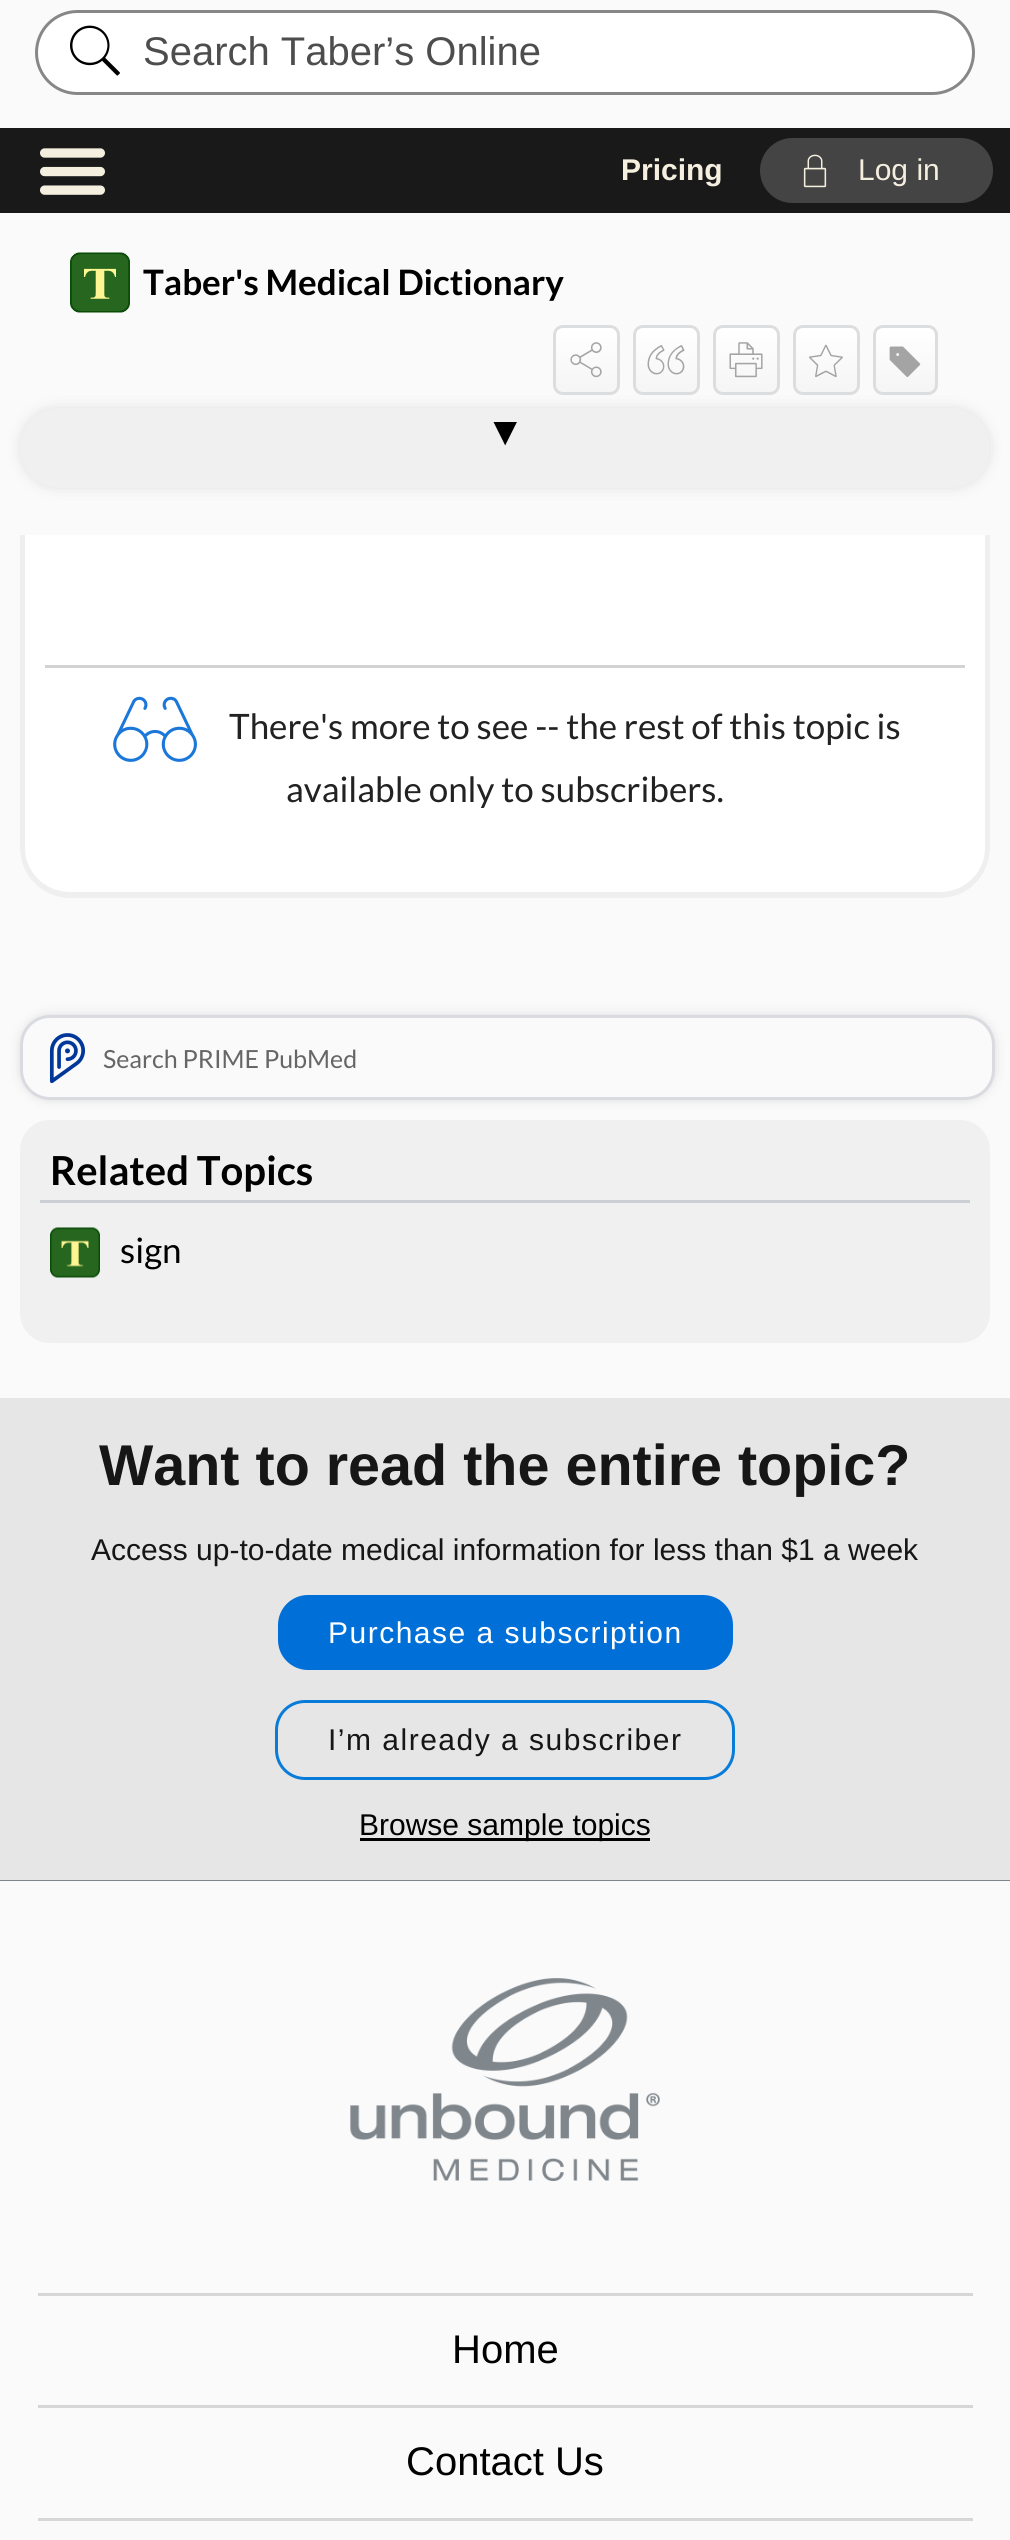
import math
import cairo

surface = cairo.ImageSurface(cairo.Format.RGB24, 1010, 2540)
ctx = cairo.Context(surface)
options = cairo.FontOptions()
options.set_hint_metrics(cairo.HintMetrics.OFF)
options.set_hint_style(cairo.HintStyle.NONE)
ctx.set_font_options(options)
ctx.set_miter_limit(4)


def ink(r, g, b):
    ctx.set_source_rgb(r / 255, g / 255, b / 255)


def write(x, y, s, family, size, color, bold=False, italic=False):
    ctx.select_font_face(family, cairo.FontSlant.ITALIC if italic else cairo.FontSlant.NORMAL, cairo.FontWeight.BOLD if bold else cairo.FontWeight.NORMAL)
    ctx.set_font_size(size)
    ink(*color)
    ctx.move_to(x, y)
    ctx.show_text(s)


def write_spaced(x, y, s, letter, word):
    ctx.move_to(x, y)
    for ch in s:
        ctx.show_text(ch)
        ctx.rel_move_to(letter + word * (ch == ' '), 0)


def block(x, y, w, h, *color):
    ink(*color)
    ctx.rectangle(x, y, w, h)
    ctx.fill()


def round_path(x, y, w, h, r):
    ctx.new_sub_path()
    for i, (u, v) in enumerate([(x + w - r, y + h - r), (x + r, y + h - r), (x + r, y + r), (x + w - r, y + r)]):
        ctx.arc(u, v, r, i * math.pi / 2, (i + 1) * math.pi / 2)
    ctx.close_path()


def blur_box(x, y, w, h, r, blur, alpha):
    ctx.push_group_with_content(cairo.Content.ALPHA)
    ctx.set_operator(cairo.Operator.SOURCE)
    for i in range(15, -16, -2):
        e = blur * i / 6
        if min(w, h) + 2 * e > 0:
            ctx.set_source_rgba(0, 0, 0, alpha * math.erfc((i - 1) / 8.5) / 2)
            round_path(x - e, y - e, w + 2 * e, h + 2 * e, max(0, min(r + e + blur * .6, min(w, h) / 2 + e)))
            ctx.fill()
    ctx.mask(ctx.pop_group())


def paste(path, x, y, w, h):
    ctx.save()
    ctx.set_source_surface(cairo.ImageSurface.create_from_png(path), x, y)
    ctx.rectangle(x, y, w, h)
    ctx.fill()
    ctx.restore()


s1 = dict(family="Liberation Sans", size=40, color=(77, 77, 77))
s2 = dict(family="Liberation Sans", size=30, color=(245, 239, 224), bold=True)
s3 = dict(family="Liberation Sans", size=30, color=(245, 239, 224))
s4 = dict(family="Lato", size=35, color=(0, 0, 0), bold=True)
s5 = dict(family="Lato", size=35, color=(34, 34, 34))
s6 = dict(family="Liberation Serif", size=40, color=(0, 0, 0))
s7 = dict(family="Lato", size=25, color=(102, 102, 102))
s8 = dict(family="Lato", size=40, color=(0, 0, 0), bold=True)
s9 = dict(family="Lato", size=35, color=(0, 0, 0))
s10 = dict(family="Liberation Sans", size=57.5, color=(22, 22, 22), bold=True)
s11 = dict(family="Liberation Sans", size=30, color=(22, 22, 22))
s12 = dict(family="Liberation Sans", size=30, color=(0, 0, 0))
s13 = dict(family="Liberation Sans", size=40, color=(0, 0, 0))

ink(250, 250, 250)
ctx.paint()
ink(255, 255, 255)
round_path(36.5, 11.5, 937, 82, 41)
ctx.fill_preserve()
ink(135, 135, 135)
ctx.set_line_width(3)
ctx.stroke()
paste("pic1.png", 70, 25, 50, 51)
write(143, 65, "Search Taber’s Online", **s1)
block(0, 128, 1010, 85, 25, 25, 25)
paste("pic2.png", 40, 148, 65, 47)
write(621, 180, "Pricing", **s2)
ink(68, 68, 68)
round_path(760, 138, 233, 65, 32.5)
ctx.fill()
paste("pic3.png", 803, 154, 24, 34)
write(858, 180, "Log in", **s3)
paste("pic4.png", 70, 252, 60, 61)
write(143, 295, "Taber's Medical Dictionary", **s4)
ctx.save()
round_path(553, 325, 67, 70, 10)
ctx.clip()
gradient = cairo.LinearGradient(586, 328, 586, 393)
gradient.add_color_stop_rgba(0, 1, 1, 1, 1)
gradient.add_color_stop_rgba(1, 0.961, 0.961, 0.961, 1)
ctx.set_source(gradient)
ctx.rectangle(553, 328, 67, 65)
ctx.fill()
ctx.restore()
round_path(554.5, 326.5, 64, 67, 8.5)
ink(219, 221, 223)
ctx.stroke()
paste("pic5.png", 570, 342, 32, 36)
ctx.save()
round_path(633, 325, 67, 70, 10)
ctx.clip()
gradient = cairo.LinearGradient(666, 328, 666, 393)
gradient.add_color_stop_rgba(0, 1, 1, 1, 1)
gradient.add_color_stop_rgba(1, 0.961, 0.961, 0.961, 1)
ctx.set_source(gradient)
ctx.rectangle(633, 328, 67, 65)
ctx.fill()
ctx.restore()
round_path(634.5, 326.5, 64, 67, 8.5)
ctx.stroke()
paste("pic6.png", 647, 345, 38, 30)
ctx.save()
round_path(713, 325, 67, 70, 10)
ctx.clip()
gradient = cairo.LinearGradient(746, 328, 746, 393)
gradient.add_color_stop_rgba(0, 1, 1, 1, 1)
gradient.add_color_stop_rgba(1, 0.961, 0.961, 0.961, 1)
ctx.set_source(gradient)
ctx.rectangle(713, 328, 67, 65)
ctx.fill()
ctx.restore()
round_path(714.5, 326.5, 64, 67, 8.5)
ctx.stroke()
paste("pic7.png", 729, 342, 34, 36)
ctx.save()
round_path(793, 325, 67, 70, 10)
ctx.clip()
gradient = cairo.LinearGradient(826, 328, 826, 393)
gradient.add_color_stop_rgba(0, 1, 1, 1, 1)
gradient.add_color_stop_rgba(1, 0.961, 0.961, 0.961, 1)
ctx.set_source(gradient)
ctx.rectangle(793, 328, 67, 65)
ctx.fill()
ctx.restore()
round_path(794.5, 326.5, 64, 67, 8.5)
ctx.stroke()
paste("pic8.png", 809, 344, 34, 34)
ctx.save()
round_path(873, 325, 65, 70, 10)
ctx.clip()
gradient = cairo.LinearGradient(905, 328, 905, 393)
gradient.add_color_stop_rgba(0, 1, 1, 1, 1)
gradient.add_color_stop_rgba(1, 0.961, 0.961, 0.961, 1)
ctx.set_source(gradient)
ctx.rectangle(873, 328, 65, 65)
ctx.fill()
ctx.restore()
round_path(874.5, 326.5, 62, 67, 8.5)
ctx.stroke()
paste("pic9.png", 889, 346, 32, 31)
ink(255, 255, 255)
ctx.new_path()
ctx.move_to(20, 535)
ctx.line_to(990, 535)
ctx.line_to(990, 848)
ctx.curve_to(990, 875.5, 967.5, 898, 940, 898)
ctx.line_to(70, 898)
ctx.curve_to(42.5, 898, 20, 875.5, 20, 848)
ctx.close_path()
ctx.fill()
ink(239, 239, 239)
ctx.set_fill_rule(cairo.FillRule.EVEN_ODD)
ctx.new_path()
ctx.move_to(20, 535)
ctx.line_to(990, 535)
ctx.line_to(990, 848)
ctx.curve_to(990, 875, 968, 898, 940, 898)
ctx.line_to(70, 898)
ctx.curve_to(42, 898, 20, 875, 20, 848)
ctx.close_path()
ctx.move_to(25, 535)
ctx.line_to(985, 535)
ctx.line_to(985, 848)
ctx.curve_to(985, 872, 965, 892, 940, 892)
ctx.line_to(70, 892)
ctx.curve_to(45, 892, 25, 872, 25, 848)
ctx.close_path()
ctx.fill()
block(45, 665, 920, 3, 211, 211, 211)
paste("pic10.png", 113, 696, 84, 66)
write(229, 739, "There's more to see -- the rest of this topic is", **s5)
write(286, 802, "available only to subscribers.", **s5)
ink(224, 224, 224)
blur_box(20, 408, 970, 80, 40, 6, 1)
ink(240, 240, 240)
round_path(20, 408, 970, 80, 40)
ctx.fill()
ctx.save()
ctx.translate(525, 422)
ctx.rotate(180 * math.pi / 180)
write(0, 0, "▲", **s6)
ctx.restore()
ink(221, 221, 221)
blur_box(20, 1015, 975, 85, 30, 5, 1)
ink(250, 250, 250)
round_path(21.5, 1016.5, 972, 82, 28.5)
ctx.fill_preserve()
ink(217, 219, 224)
ctx.stroke()
paste("pic11.png", 49, 1033, 36, 51)
write(103, 1068, "Search PRIME PubMed", **s7)
ink(240, 240, 240)
round_path(20, 1120, 970, 223, 30)
ctx.fill()
block(40, 1200, 930, 3, 204, 207, 211)
write(50, 1185, "Related Topics", **s8)
paste("pic12.png", 50, 1227, 50, 51)
write(120, 1263, "sign", **s9)
block(0, 1398, 1010, 482, 230, 230, 230)
write(99, 1485, "Want to read the entire topic?", **s10)
write(91, 1560, "Access up-to-date medical information for less than $1 a week", **s11)
ink(0, 111, 216)
round_path(278, 1595, 455, 75, 30)
ctx.fill()
ink(255, 255, 255)
write_spaced(328, 1643, "Purchase a subscription", 1.5, 0)
round_path(276.5, 1701.5, 457, 77, 28.5)
ink(9, 123, 217)
ctx.stroke()
ink(22, 22, 22)
write_spaced(328, 1750, "I’m already a subscriber", 1.5, 0)
block(360, 1838, 290, 3, 0, 0, 0)
write(359, 1835, "Browse sample topics", **s12)
block(0, 1880, 1010, 1, 127, 134, 140)
paste("pic13.png", 350, 1978, 310, 203)
block(38, 2293, 935, 3, 214, 214, 214)
write(452, 2363, "Home", **s13)
block(38, 2405, 935, 3, 214, 214, 214)
write(406, 2475, "Contact Us", **s13)
block(38, 2518, 935, 3, 214, 214, 214)
surface.write_to_png("screenshot.png")
